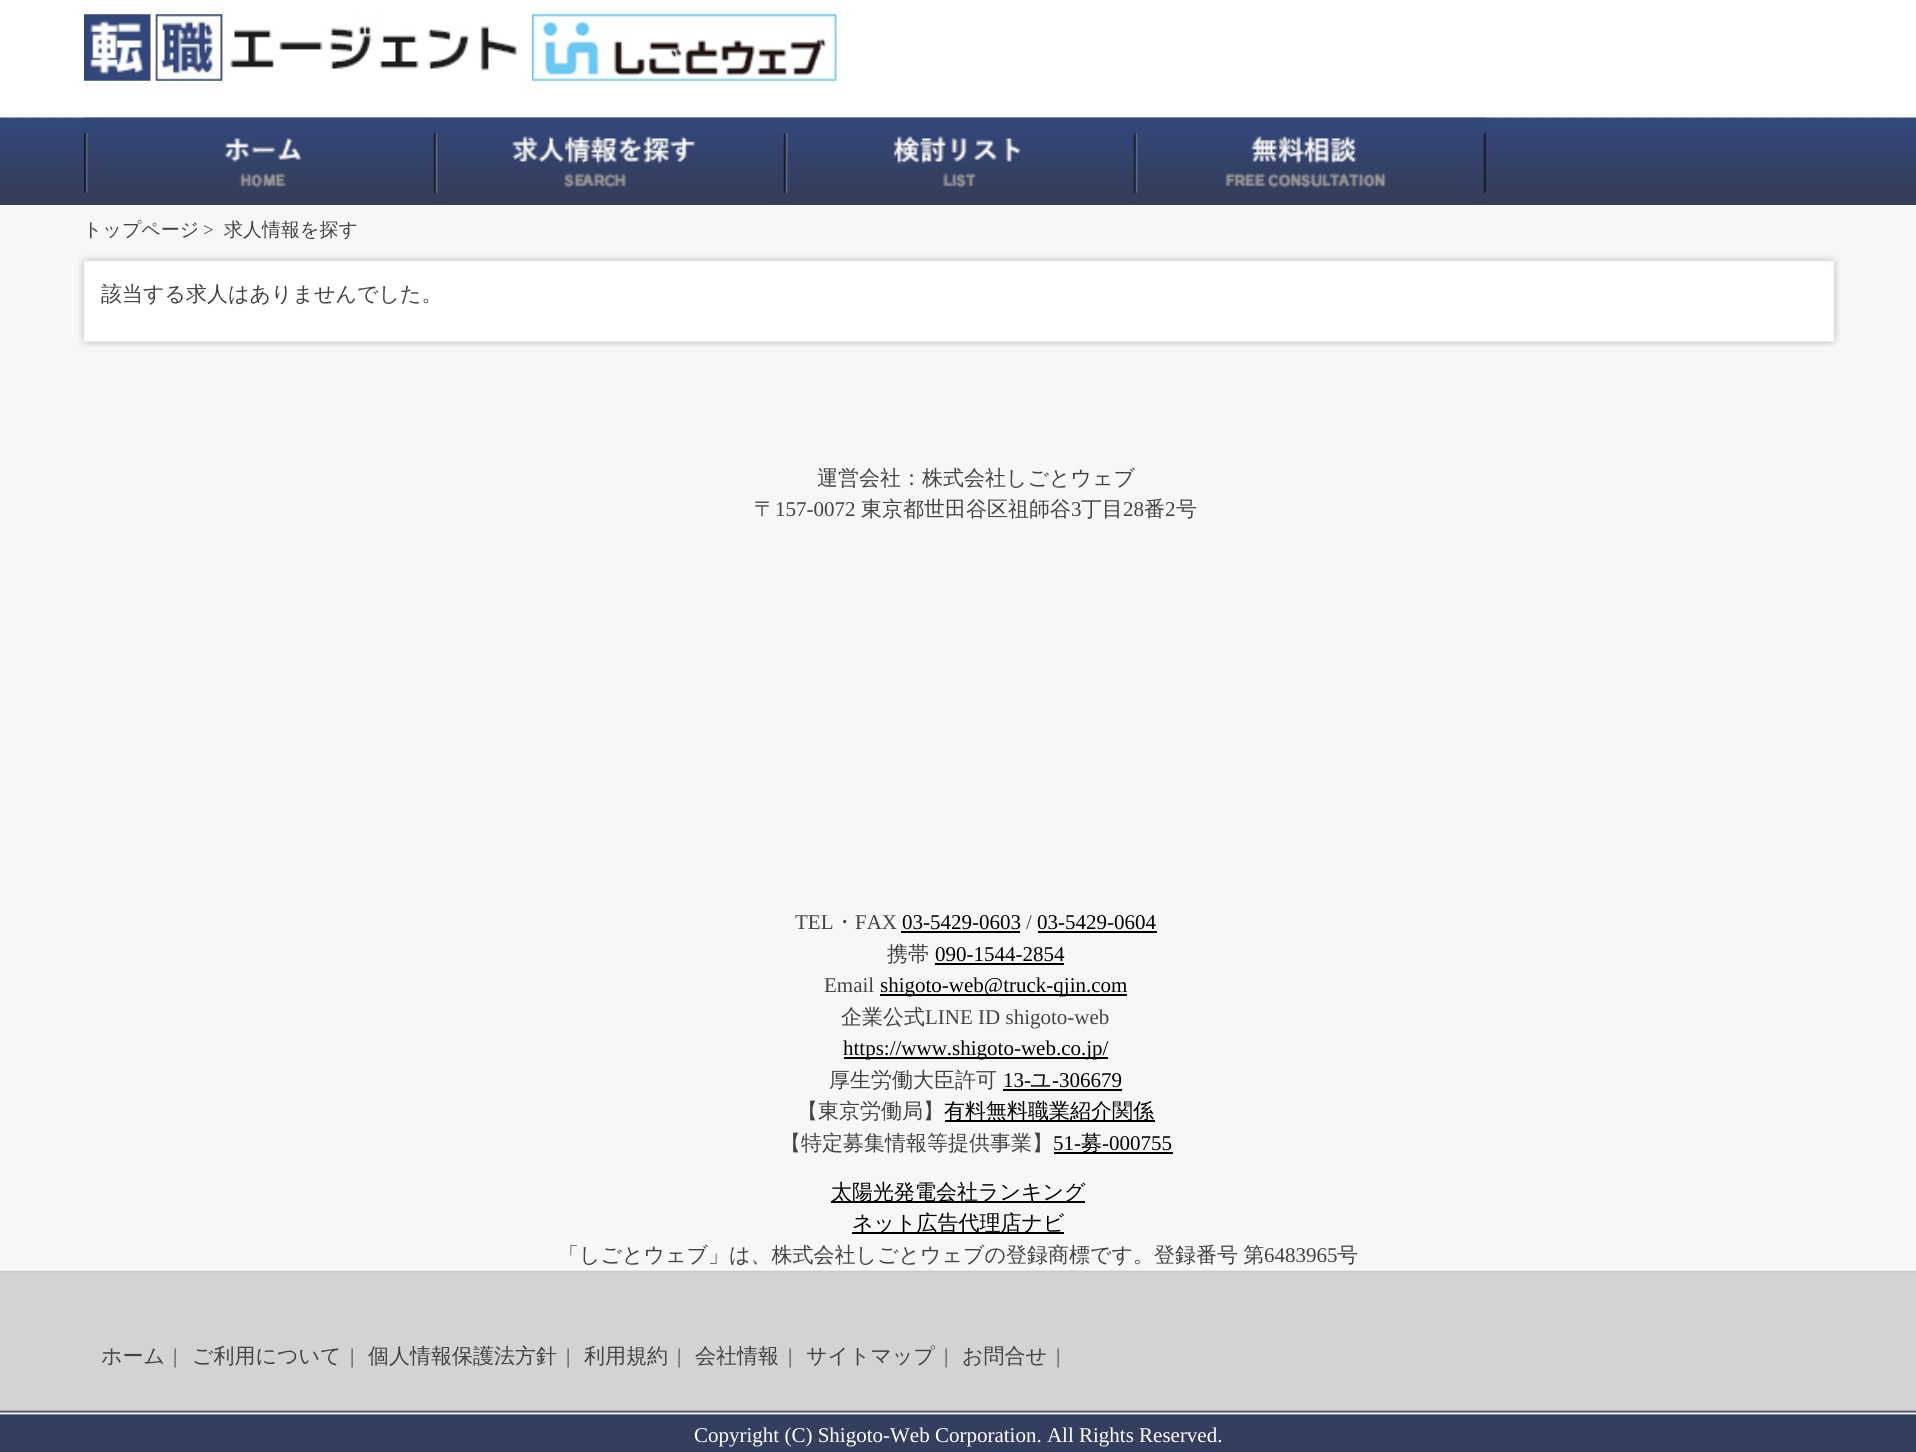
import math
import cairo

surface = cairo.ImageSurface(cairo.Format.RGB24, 1916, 1452)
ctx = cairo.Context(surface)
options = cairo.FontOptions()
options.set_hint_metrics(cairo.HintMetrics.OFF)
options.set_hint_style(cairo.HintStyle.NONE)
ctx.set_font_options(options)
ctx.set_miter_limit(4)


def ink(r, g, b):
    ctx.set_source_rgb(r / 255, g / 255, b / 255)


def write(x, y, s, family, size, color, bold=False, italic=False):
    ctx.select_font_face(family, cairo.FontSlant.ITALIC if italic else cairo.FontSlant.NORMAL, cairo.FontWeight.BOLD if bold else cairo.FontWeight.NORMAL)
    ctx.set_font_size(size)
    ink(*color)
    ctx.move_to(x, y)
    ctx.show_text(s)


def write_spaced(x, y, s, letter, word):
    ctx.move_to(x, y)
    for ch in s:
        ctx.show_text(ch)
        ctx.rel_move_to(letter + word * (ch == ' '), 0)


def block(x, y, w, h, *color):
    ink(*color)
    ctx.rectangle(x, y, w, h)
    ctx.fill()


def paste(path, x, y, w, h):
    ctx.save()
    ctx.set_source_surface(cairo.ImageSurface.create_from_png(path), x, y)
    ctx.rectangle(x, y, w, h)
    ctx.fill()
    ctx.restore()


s1 = dict(family="WenQuanYi Zen Hei Medium", size=19, color=(67, 67, 67))
s2 = dict(family="Liberation Serif", size=19, color=(67, 67, 67))
s3 = dict(family="WenQuanYi Zen Hei Medium", size=21, color=(67, 67, 67))
s4 = dict(family="Liberation Serif", size=21, color=(67, 67, 67))
s5 = dict(family="Liberation Serif", size=21, color=(0, 0, 0))
s6 = dict(family="WenQuanYi Zen Hei Medium", size=21, color=(0, 0, 0))
s7 = dict(family="Liberation Serif", size=21, color=(255, 255, 255))

ink(247, 247, 247)
ctx.paint()
paste("pic1.png", 0, 0, 1916, 205)
paste("pic2.png", 84, 14, 433, 67)
paste("pic3.png", 532, 14, 305, 67)
paste("pic4.png", 84, 117, 352, 77)
paste("pic5.png", 435, 117, 351, 77)
paste("pic6.png", 785, 117, 351, 77)
paste("pic7.png", 1135, 117, 351, 77)
write(83, 236, "トップページ", **s1)
write(203, 236, ">", **s2)
write(224, 236, "求人情報を探す", **s1)
paste("pic8.png", 78, 255, 1762, 92)
write(101, 301, "該当する求人はありませんでした。", **s3)
write(817, 485, "運営会社：株式会社しごとウェブ", **s3)
write(754, 516, "〒", **s3)
write(775, 516, "157-0072", **s4)
write(861, 516, "東京都世田谷区祖師谷", **s3)
write(1071, 516, "3", **s4)
write(1081, 516, "丁目", **s3)
write(1123, 516, "28", **s4)
write(1144, 516, "番", **s3)
write(1165, 516, "2", **s4)
write(1176, 516, "号", **s3)
write(795, 929, "TEL", **s4)
write(834, 929, "・", **s3)
write(855, 929, "FAX", **s4)
write(902, 929, "03-5429-0603", **s5)
block(901, 931, 119, 2, 0, 0, 0)
write(1026, 929, "/", **s4)
write(1037, 929, "03-5429-0604", **s5)
block(1038, 931, 119, 2, 0, 0, 0)
write(887, 961, "携帯", **s3)
write(935, 961, "090-1544-2854", **s5)
block(935, 963, 129, 2, 0, 0, 0)
write(824, 992, "Email", **s4)
block(880, 994, 247, 2, 0, 0, 0)
write(880, 992, "shigoto-web@truck-qjin.com", **s5)
write(841, 1024, "企業公式", **s3)
write(925, 1024, "LINE ID shigoto-web", **s4)
block(844, 1057, 264, 2, 0, 0, 0)
write(843, 1055, "https://www.shigoto-web.co.jp/", **s5)
write(829, 1087, "厚生労働大臣許可", **s3)
write(1003, 1087, "13-", **s5)
block(1003, 1089, 119, 2, 0, 0, 0)
write(1030, 1087, "ユ", **s6)
write(1052, 1087, "-306679", **s5)
write(797, 1118, "【東京労働局】", **s3)
block(945, 1120, 210, 2, 0, 0, 0)
write(944, 1118, "有料無料職業紹介関係", **s6)
write(780, 1150, "【特定募集情報等提供事業】", **s3)
write(1053, 1150, "51-", **s5)
block(1054, 1152, 119, 2, 0, 0, 0)
write(1081, 1150, "募", **s6)
write(1102, 1150, "-000755", **s5)
block(831, 1201, 254, 2, 0, 0, 0)
write(831, 1199, "太陽光発電会社ランキング", **s6)
block(852, 1232, 212, 2, 0, 0, 0)
write(852, 1230, "ネット広告代理店ナビ", **s6)
write(558, 1262, "「しごとウェブ」は、株式会社しごとウェブの登録商標です。", **s3)
write_spaced(1154, 1262, "登録番号 第", 0, -1)
write(1264, 1262, "6483965", **s4)
write(1337, 1262, "号", **s3)
paste("pic9.png", 0, 1270, 1916, 182)
write(101, 1363, "ホーム", **s3)
write(173, 1363, "|", **s4)
write(192, 1363, "ご利用について", **s3)
write(350, 1363, "|", **s4)
write(368, 1363, "個人情報保護法方針", **s3)
write(566, 1363, "|", **s4)
write(584, 1363, "利用規約", **s3)
write(677, 1363, "|", **s4)
write(695, 1363, "会社情報", **s3)
write(788, 1363, "|", **s4)
write(806, 1363, "サイトマップ", **s3)
write(944, 1363, "|", **s4)
write(962, 1363, "お問合せ", **s3)
write(1056, 1363, "|", **s4)
write(694, 1442, "Copyright (C) Shigoto-Web Corporation. All Rights Reserved.", **s7)
surface.write_to_png("screenshot.png")
